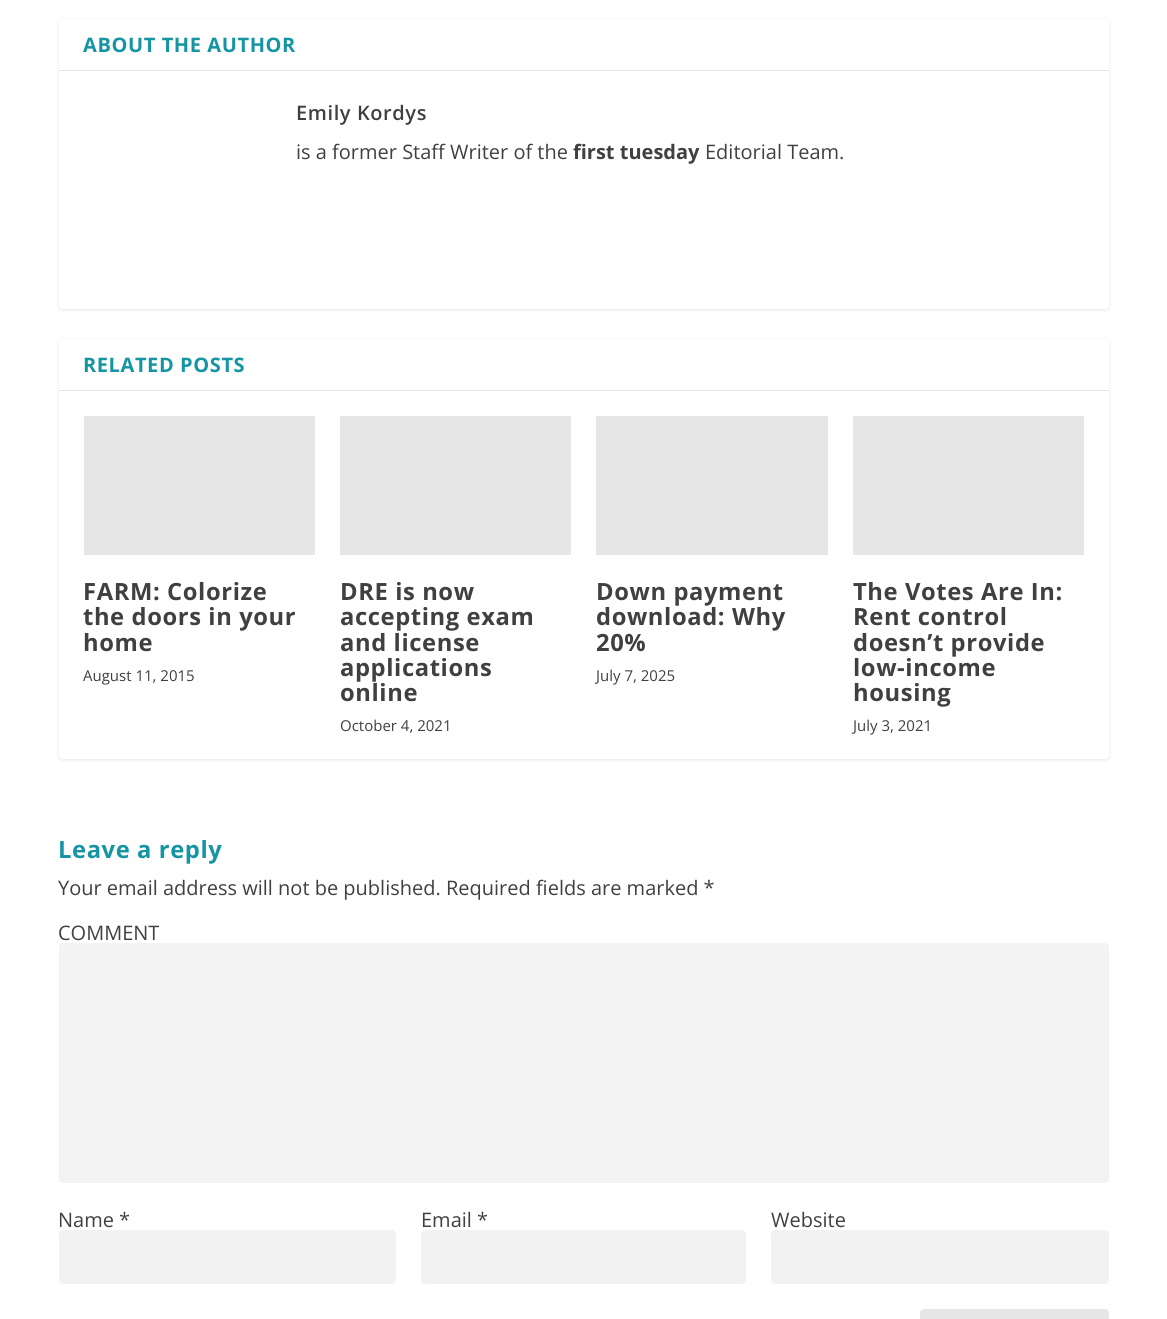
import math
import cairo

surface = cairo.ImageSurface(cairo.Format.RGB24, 1167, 1319)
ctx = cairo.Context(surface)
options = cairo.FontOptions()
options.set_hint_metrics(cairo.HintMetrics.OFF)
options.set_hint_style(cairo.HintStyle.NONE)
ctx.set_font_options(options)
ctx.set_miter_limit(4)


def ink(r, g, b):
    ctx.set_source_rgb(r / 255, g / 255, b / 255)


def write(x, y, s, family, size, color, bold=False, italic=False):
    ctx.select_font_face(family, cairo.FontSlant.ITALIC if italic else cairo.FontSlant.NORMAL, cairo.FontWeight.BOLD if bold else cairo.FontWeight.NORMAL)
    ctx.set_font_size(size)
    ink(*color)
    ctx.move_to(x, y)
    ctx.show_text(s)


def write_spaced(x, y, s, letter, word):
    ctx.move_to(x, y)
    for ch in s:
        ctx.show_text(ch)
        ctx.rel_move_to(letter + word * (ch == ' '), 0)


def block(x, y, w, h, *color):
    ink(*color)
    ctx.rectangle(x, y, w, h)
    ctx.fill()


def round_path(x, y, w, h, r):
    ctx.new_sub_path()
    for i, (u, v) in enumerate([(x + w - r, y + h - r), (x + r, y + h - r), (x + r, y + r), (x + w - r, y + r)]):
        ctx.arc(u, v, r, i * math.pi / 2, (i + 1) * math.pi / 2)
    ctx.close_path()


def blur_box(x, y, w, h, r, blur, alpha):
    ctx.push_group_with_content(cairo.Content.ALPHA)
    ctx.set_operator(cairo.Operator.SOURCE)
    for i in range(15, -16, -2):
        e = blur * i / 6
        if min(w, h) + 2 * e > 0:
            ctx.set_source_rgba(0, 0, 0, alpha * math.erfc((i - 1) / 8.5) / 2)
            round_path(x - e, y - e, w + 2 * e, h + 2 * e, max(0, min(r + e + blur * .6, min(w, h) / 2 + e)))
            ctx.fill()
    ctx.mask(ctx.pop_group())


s1 = dict(family="Open Sans", size=20, color=(64, 64, 64))
s2 = dict(family="Open Sans", size=20, color=(64, 64, 64), bold=True)
s3 = dict(family="Open Sans", size=15, color=(64, 64, 64))

ink(255, 255, 255)
ctx.paint()
ink(0, 0, 0)
blur_box(59, 20, 1050, 290, 4, 2, 0.1)
ink(255, 255, 255)
round_path(59, 19, 1050, 290, 4)
ctx.fill()
block(59, 70, 1050, 1, 230, 230, 230)
ctx.select_font_face("Open Sans", cairo.FontSlant.NORMAL, cairo.FontWeight.BOLD)
ctx.set_font_size(20)
ink(21, 149, 163)
write_spaced(83, 52, "ABOUT THE AUTHOR", 0.6, 0)
ctx.select_font_face("Open Sans SemiBold")
ink(64, 64, 64)
write_spaced(296, 120, "Emily Kordys", 0.6, 0)
write(296, 159, "is a former Staff Writer of the", **s1)
write(573, 159, "first tuesday", **s2)
write(705, 159, "Editorial Team.", **s1)
ink(0, 0, 0)
blur_box(59, 340, 1050, 420, 4, 2, 0.1)
ink(255, 255, 255)
round_path(59, 339, 1050, 420, 4)
ctx.fill()
block(59, 390, 1050, 1, 230, 230, 230)
ctx.select_font_face("Open Sans", cairo.FontSlant.NORMAL, cairo.FontWeight.BOLD)
ink(21, 149, 163)
write_spaced(83, 372, "RELATED POSTS", 0.6, 0)
block(84, 416, 231, 139, 230, 230, 230)
ctx.set_font_size(23.75)
ink(64, 64, 64)
write_spaced(83, 600, "FARM: Colorize", 0.6, 0)
write_spaced(83, 625, "the doors in your", 0.6, 0)
write_spaced(83, 651, "home", 0.6, 0)
write(83, 681, "August 11, 2015", **s3)
block(340, 416, 231, 139, 230, 230, 230)
ctx.select_font_face("Open Sans", cairo.FontSlant.NORMAL, cairo.FontWeight.BOLD)
ctx.set_font_size(23.75)
ink(64, 64, 64)
write_spaced(340, 600, "DRE is now", 0.6, 0)
write_spaced(340, 625, "accepting exam", 0.6, 0)
write_spaced(340, 651, "and license", 0.6, 0)
write_spaced(340, 676, "applications", 0.6, 0)
write_spaced(340, 701, "online", 0.6, 0)
write(340, 731, "October 4, 2021", **s3)
block(596, 416, 232, 139, 230, 230, 230)
ctx.select_font_face("Open Sans", cairo.FontSlant.NORMAL, cairo.FontWeight.BOLD)
ctx.set_font_size(23.75)
ink(64, 64, 64)
write_spaced(596, 600, "Down payment", 0.6, 0)
write_spaced(596, 625, "download: Why", 0.6, 0)
write_spaced(596, 651, "20%", 0.6, 0)
write(596, 681, "July 7, 2025", **s3)
block(853, 416, 231, 139, 230, 230, 230)
ctx.select_font_face("Open Sans", cairo.FontSlant.NORMAL, cairo.FontWeight.BOLD)
ctx.set_font_size(23.75)
ink(64, 64, 64)
write_spaced(853, 600, "The Votes Are In:", 0.6, 0)
write_spaced(853, 625, "Rent control", 0.6, 0)
write_spaced(853, 651, "doesn’t provide", 0.6, 0)
write_spaced(853, 676, "low-income", 0.6, 0)
write_spaced(853, 701, "housing", 0.6, 0)
write(853, 731, "July 3, 2021", **s3)
ctx.select_font_face("Open Sans", cairo.FontSlant.NORMAL, cairo.FontWeight.BOLD)
ctx.set_font_size(23.75)
ink(21, 149, 163)
write_spaced(58, 858, "Leave a reply", 0.6, 0)
write(58, 895, "Your email address will not be published. Required fields are marked *", **s1)
write(58, 940, "COMMENT", **s1)
ink(243, 243, 243)
round_path(59, 943, 1050, 240, 4)
ctx.fill()
write(58, 1227, "Name *", **s1)
ink(242, 242, 242)
round_path(59, 1230, 337, 54, 4)
ctx.fill()
write(421, 1227, "Email *", **s1)
ink(242, 242, 242)
round_path(421, 1230, 325, 54, 4)
ctx.fill()
write(771, 1227, "Website", **s1)
ink(242, 242, 242)
round_path(771, 1230, 338, 54, 4)
ctx.fill()
ink(230, 230, 230)
round_path(920, 1309, 189, 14, 4)
ctx.fill()
surface.write_to_png("screenshot.png")
